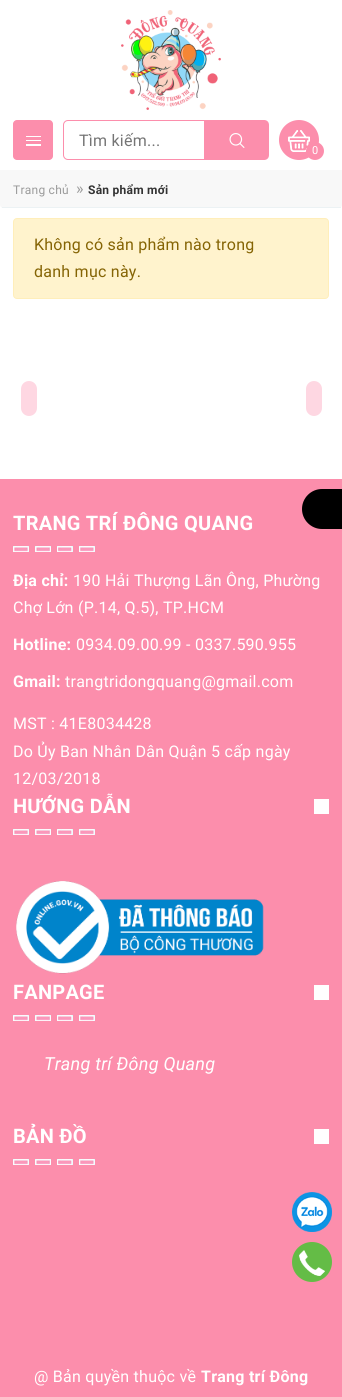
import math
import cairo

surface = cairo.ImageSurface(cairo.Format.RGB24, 342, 1397)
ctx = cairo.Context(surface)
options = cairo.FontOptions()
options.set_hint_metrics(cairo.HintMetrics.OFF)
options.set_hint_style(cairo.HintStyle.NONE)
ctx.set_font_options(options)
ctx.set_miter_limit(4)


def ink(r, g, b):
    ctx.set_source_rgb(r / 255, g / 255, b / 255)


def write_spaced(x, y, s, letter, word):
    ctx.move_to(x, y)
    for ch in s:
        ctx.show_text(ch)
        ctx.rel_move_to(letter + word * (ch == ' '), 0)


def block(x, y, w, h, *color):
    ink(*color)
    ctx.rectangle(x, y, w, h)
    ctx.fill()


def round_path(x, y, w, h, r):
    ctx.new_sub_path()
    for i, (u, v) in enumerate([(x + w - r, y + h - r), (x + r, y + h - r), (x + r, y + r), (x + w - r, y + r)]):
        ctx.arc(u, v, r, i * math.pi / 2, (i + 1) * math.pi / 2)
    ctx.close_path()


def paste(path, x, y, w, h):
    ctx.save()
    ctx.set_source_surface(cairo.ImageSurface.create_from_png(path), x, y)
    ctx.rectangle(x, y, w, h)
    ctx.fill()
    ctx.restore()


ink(255, 255, 255)
ctx.paint()
paste("pic1.png", 121, 10, 100, 100)
ink(252, 142, 172)
round_path(13, 120, 40, 40, 4)
ctx.fill()
block(26, 136, 15, 1, 255, 255, 255)
block(26, 140, 15, 1, 255, 255, 255)
block(26, 144, 15, 2, 255, 255, 255)
round_path(63.5, 120.5, 203, 39, 4.5)
ink(252, 142, 172)
ctx.set_line_width(1)
ctx.stroke()
ctx.select_font_face("Roboto")
ctx.set_font_size(16)
ink(117, 117, 117)
write_spaced(79, 146, "Tìm kiếm...", 0.25, 0)
ink(252, 142, 172)
ctx.new_path()
ctx.move_to(204, 120)
ctx.line_to(264, 120)
ctx.curve_to(267, 120, 269, 122, 269, 125)
ctx.line_to(269, 155)
ctx.curve_to(269, 158, 267, 160, 264, 160)
ctx.line_to(204, 160)
ctx.close_path()
ctx.fill()
paste("pic2.png", 229, 133, 16, 15)
ctx.arc(299, 140, 20, 0, 2 * math.pi)
ctx.fill()
paste("pic3.png", 288, 130, 22, 22)
ctx.arc(315, 151, 9, 0, 2 * math.pi)
ctx.fill()
ctx.set_font_size(11)
ink(255, 255, 255)
write_spaced(312, 154, "0", 0.25, 0)
ink(248, 248, 248)
ctx.new_path()
ctx.move_to(0, 170)
ctx.line_to(342, 170)
ctx.line_to(342, 205)
ctx.curve_to(342, 206.5, 340.5, 208, 339, 208)
ctx.line_to(3, 208)
ctx.curve_to(1.5, 208, 0, 206.5, 0, 205)
ctx.close_path()
ctx.fill()
block(2, 207, 339, 1, 236, 242, 244)
ctx.set_font_size(12)
ink(155, 155, 155)
write_spaced(13, 194, "Trang chủ", 0.25, 0)
ctx.set_font_size(16)
write_spaced(76, 194, "»", 0.25, 0)
ctx.select_font_face("Roboto", cairo.FontSlant.NORMAL, cairo.FontWeight.BOLD)
ctx.set_font_size(12)
ink(51, 51, 51)
write_spaced(88, 194, "Sản phẩm mới", 0.25, 0)
ink(255, 243, 205)
round_path(13.5, 218.5, 315, 80, 3.5)
ctx.fill_preserve()
ink(255, 238, 186)
ctx.stroke()
ctx.select_font_face("Roboto")
ctx.set_font_size(16)
ink(133, 100, 4)
write_spaced(34, 250, "Không có sản phẩm nào trong", 0.25, 0)
write_spaced(34, 277, "danh mục này.", 0.25, 0)
block(0, 479, 342, 918, 252, 142, 172)
ink(0, 0, 0)
ctx.new_path()
ctx.move_to(322, 489)
ctx.line_to(342, 489)
ctx.line_to(342, 529)
ctx.line_to(322, 529)
ctx.curve_to(311, 529, 302, 520, 302, 509)
ctx.curve_to(302, 498, 311, 489, 322, 489)
ctx.close_path()
ctx.fill()
ink(254, 215, 226)
round_path(21, 381, 16, 35, 8)
ctx.fill()
round_path(306, 381, 16, 35, 8)
ctx.fill()
ctx.select_font_face("Roboto", cairo.FontSlant.NORMAL, cairo.FontWeight.BOLD)
ctx.set_font_size(20)
ink(255, 255, 255)
write_spaced(13, 530, "TRANG TRÍ ĐÔNG QUANG", 0.25, 0)
paste("pic4.png", 13, 546, 82, 6)
ctx.set_font_size(16)
write_spaced(13, 586, "Địa chỉ:", 0.25, 0)
ctx.select_font_face("Roboto")
write_spaced(73, 586, "190 Hải Thượng Lãn Ông, Phường", 0.25, 0)
write_spaced(13, 613, "Chợ Lớn (P.14, Q.5), TP.HCM", 0.25, 0)
ctx.select_font_face("Roboto", cairo.FontSlant.NORMAL, cairo.FontWeight.BOLD)
write_spaced(13, 650, "Hotline:", 0.25, 0)
ctx.select_font_face("Roboto")
write_spaced(76, 650, "0934.09.00.99 - 0337.590.955", 0.25, 0)
ctx.select_font_face("Roboto", cairo.FontSlant.NORMAL, cairo.FontWeight.BOLD)
write_spaced(13, 687, "Gmail:", 0.25, 0)
ctx.select_font_face("Roboto")
write_spaced(65, 687, "trangtridongquang@gmail.com", 0.25, 0)
write_spaced(13, 729, "MST : 41E8034428", 0.25, 0)
write_spaced(13, 757, "Do Ủy Ban Nhân Dân Quận 5 cấp ngày", 0.25, 0)
write_spaced(13, 784, "12/03/2018", 0.25, 0)
ctx.select_font_face("Roboto", cairo.FontSlant.NORMAL, cairo.FontWeight.BOLD)
ctx.set_font_size(20)
write_spaced(13, 813, "HƯỚNG DẪN", 0.25, 0)
block(314, 799, 15, 15, 255, 255, 255)
paste("pic4.png", 13, 829, 82, 6)
paste("pic5.png", 16, 881, 248, 93)
write_spaced(13, 999, "FANPAGE", 0.25, 0)
block(314, 985, 15, 15, 255, 255, 255)
paste("pic4.png", 13, 1015, 82, 6)
ctx.select_font_face("Roboto", cairo.FontSlant.ITALIC)
ctx.set_font_size(18)
write_spaced(44, 1070, "Trang trí Đông Quang", 0.25, 0)
ctx.select_font_face("Roboto", cairo.FontSlant.NORMAL, cairo.FontWeight.BOLD)
ctx.set_font_size(20)
write_spaced(13, 1143, "BẢN ĐỒ", 0.25, 0)
block(314, 1129, 15, 15, 255, 255, 255)
paste("pic4.png", 13, 1159, 82, 6)
paste("pic6.png", 292, 1192, 40, 40)
ink(100, 188, 70)
ctx.arc(312, 1262, 20, 0, 2 * math.pi)
ctx.fill()
paste("pic7.png", 299, 1250, 26, 26)
ctx.select_font_face("Roboto")
ctx.set_font_size(16)
ink(255, 255, 255)
write_spaced(34, 1382, "@ Bản quyền thuộc về", 0.25, 0)
ctx.select_font_face("Roboto", cairo.FontSlant.NORMAL, cairo.FontWeight.BOLD)
write_spaced(201, 1382, "Trang trí Đông", 0.25, 0)
surface.write_to_png("screenshot.png")
